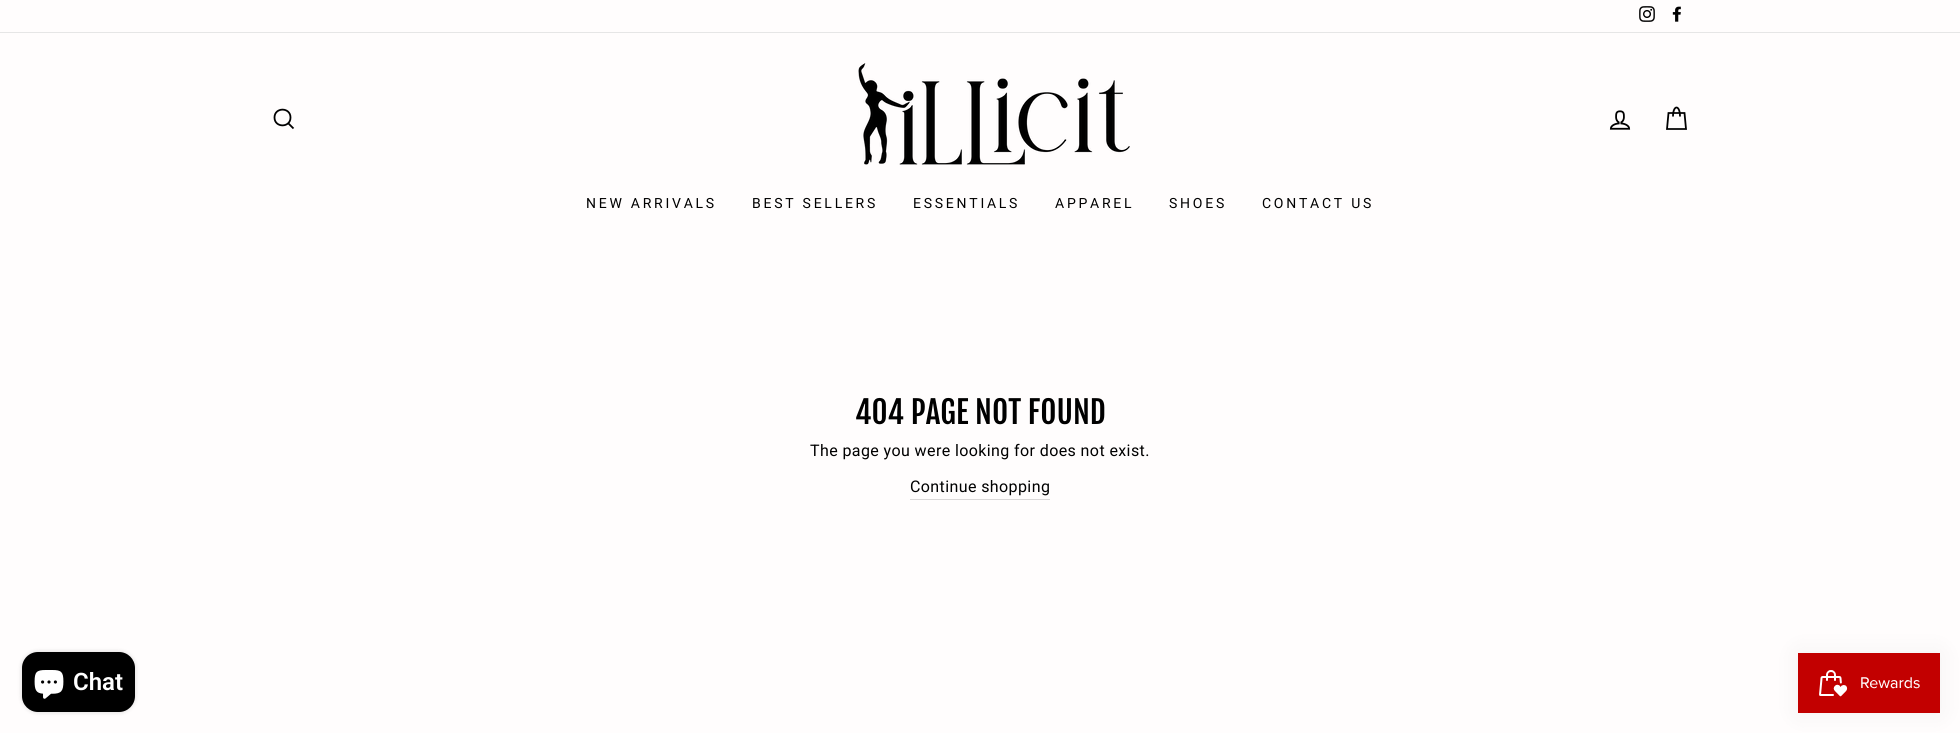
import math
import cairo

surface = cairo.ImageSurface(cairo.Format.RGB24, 1960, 733)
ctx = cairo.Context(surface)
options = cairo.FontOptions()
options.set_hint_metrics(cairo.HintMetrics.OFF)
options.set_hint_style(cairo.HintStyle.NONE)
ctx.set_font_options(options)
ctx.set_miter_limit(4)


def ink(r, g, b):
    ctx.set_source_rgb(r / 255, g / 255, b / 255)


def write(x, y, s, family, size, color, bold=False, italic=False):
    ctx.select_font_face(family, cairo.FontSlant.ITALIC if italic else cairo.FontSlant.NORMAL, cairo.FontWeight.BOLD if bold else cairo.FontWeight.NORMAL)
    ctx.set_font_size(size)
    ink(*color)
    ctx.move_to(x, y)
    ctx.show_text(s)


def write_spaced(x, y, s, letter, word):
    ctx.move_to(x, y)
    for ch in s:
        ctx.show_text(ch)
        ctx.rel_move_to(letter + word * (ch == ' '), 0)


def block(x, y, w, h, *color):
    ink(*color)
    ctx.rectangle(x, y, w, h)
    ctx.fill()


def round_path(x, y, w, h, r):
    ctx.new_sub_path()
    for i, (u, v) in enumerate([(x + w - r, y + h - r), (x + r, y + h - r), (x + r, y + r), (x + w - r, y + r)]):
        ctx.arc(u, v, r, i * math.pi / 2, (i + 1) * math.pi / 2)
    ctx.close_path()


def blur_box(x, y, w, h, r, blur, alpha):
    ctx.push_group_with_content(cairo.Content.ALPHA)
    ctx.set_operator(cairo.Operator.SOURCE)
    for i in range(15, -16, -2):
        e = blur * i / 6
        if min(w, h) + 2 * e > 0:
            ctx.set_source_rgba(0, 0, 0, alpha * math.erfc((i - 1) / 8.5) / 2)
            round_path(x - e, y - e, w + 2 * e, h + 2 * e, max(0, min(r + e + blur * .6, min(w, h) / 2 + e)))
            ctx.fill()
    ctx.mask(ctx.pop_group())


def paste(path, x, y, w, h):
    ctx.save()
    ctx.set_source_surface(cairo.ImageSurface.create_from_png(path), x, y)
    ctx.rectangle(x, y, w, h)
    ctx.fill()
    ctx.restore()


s1 = dict(family="Fjalla One", size=31, color=(0, 0, 0))
s2 = dict(family="Roboto SemiBold", size=24, color=(255, 255, 255))

ink(255, 253, 253)
ctx.paint()
paste("pic1.png", 1639, 6, 16, 16)
paste("pic2.png", 1672, 6, 9, 16)
block(0, 32, 1960, 1, 230, 230, 230)
ctx.new_path()
ctx.move_to(290.5, 117.5)
ctx.curve_to(290.5, 128, 274.5, 128, 274.5, 117.5)
ctx.curve_to(274.5, 107, 290.5, 107, 290.5, 117.5)
ctx.close_path()
ctx.move_to(293.5, 128.5)
ctx.line_to(288.5, 123.5)
ink(0, 0, 0)
ctx.set_line_width(1.8)
ctx.stroke()
paste("pic3.png", 858, 63, 272, 102)
paste("pic4.png", 1609, 110, 22, 20)
ctx.new_path()
ctx.move_to(1673, 116.5)
ctx.curve_to(1673, 104.5, 1680, 104.5, 1680, 116.5)
ctx.move_to(1668.5, 113)
ctx.line_to(1684.5, 113)
ctx.line_to(1686, 129)
ctx.line_to(1667, 129)
ctx.close_path()
ctx.stroke()
ctx.select_font_face("Roboto")
ctx.set_font_size(14)
write_spaced(586, 208, "NEW ARRIVALS", 2.75, 0)
write_spaced(752, 208, "BEST SELLERS", 2.75, 0)
write_spaced(913, 208, "ESSENTIALS", 2.75, 0)
write_spaced(1055, 208, "APPAREL", 2.75, 0)
write_spaced(1169, 208, "SHOES", 2.75, 0)
write_spaced(1262, 208, "CONTACT US", 2.75, 0)
write(855, 424, "404 PAGE NOT FOUND", **s1)
ctx.select_font_face("Roboto")
ctx.set_font_size(16)
write_spaced(810, 456, "The page you were looking for does not exist.", 0.4, 0)
block(910, 499, 140, 1, 217, 215, 215)
ink(0, 0, 0)
write_spaced(910, 492, "Continue shopping", 0.4, 0)
ink(0, 0, 0)
blur_box(22, 652, 113, 60, 16, 2.5, 0.15)
ink(0, 0, 0)
round_path(22, 652, 113, 60, 16)
ctx.fill()
paste("pic5.png", 34, 670, 30, 29)
write(73, 690, "Chat", **s2)
ink(0, 0, 0)
blur_box(1798, 653, 142, 60, 0, 12.5, 0.05)
paste("pic6.png", 1798, 653, 142, 60)
surface.write_to_png("screenshot.png")
